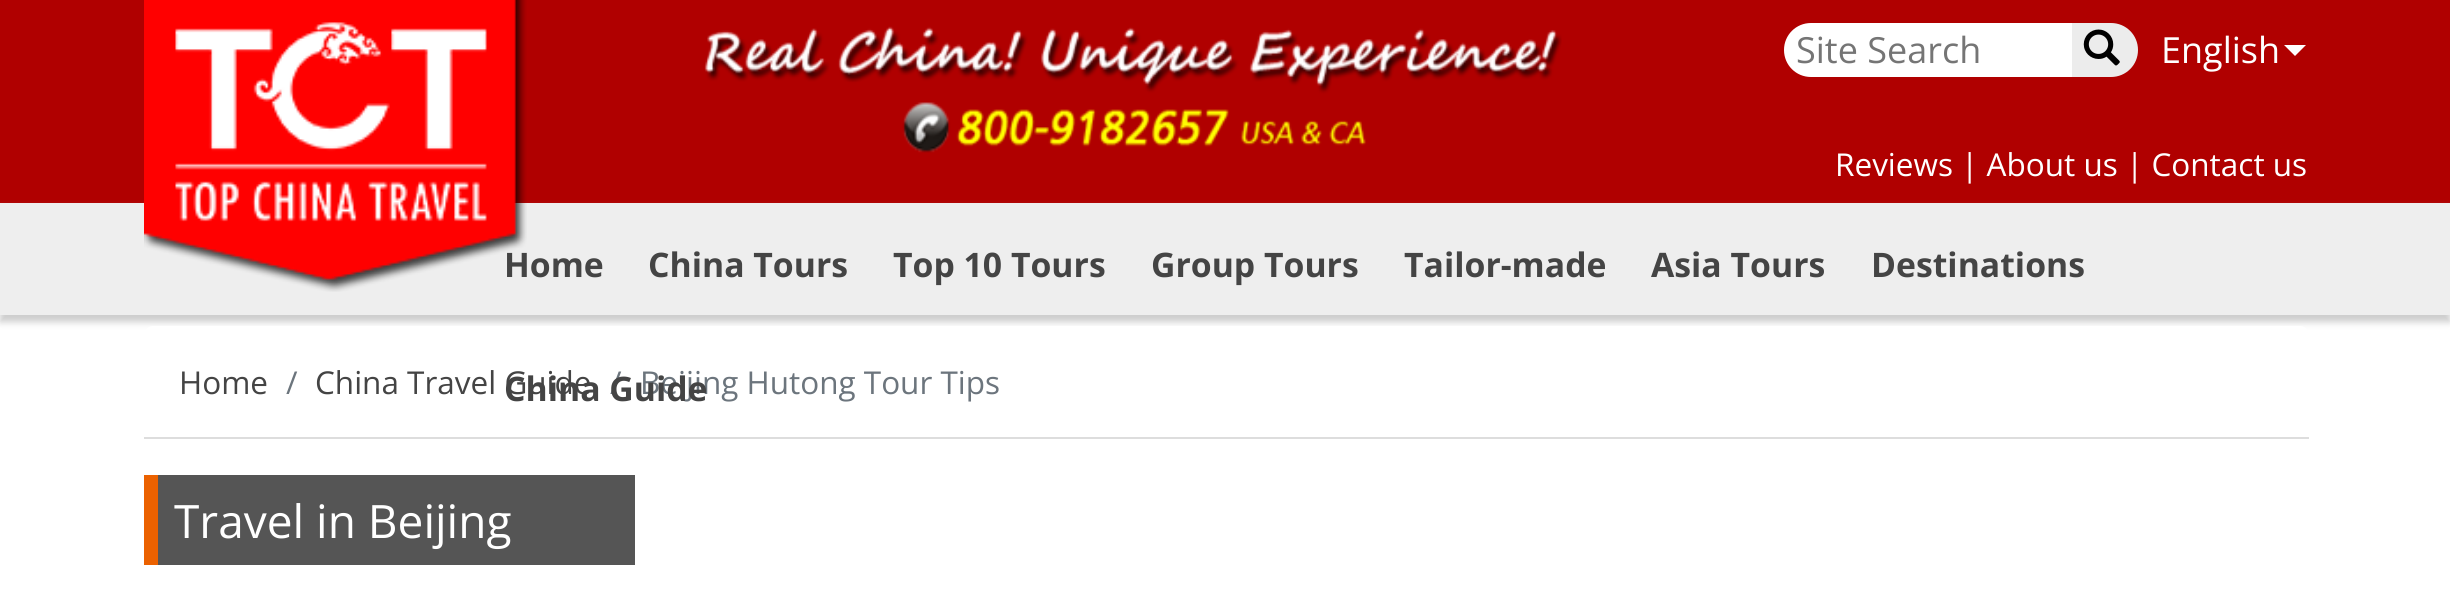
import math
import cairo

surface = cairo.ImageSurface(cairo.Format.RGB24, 2450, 600)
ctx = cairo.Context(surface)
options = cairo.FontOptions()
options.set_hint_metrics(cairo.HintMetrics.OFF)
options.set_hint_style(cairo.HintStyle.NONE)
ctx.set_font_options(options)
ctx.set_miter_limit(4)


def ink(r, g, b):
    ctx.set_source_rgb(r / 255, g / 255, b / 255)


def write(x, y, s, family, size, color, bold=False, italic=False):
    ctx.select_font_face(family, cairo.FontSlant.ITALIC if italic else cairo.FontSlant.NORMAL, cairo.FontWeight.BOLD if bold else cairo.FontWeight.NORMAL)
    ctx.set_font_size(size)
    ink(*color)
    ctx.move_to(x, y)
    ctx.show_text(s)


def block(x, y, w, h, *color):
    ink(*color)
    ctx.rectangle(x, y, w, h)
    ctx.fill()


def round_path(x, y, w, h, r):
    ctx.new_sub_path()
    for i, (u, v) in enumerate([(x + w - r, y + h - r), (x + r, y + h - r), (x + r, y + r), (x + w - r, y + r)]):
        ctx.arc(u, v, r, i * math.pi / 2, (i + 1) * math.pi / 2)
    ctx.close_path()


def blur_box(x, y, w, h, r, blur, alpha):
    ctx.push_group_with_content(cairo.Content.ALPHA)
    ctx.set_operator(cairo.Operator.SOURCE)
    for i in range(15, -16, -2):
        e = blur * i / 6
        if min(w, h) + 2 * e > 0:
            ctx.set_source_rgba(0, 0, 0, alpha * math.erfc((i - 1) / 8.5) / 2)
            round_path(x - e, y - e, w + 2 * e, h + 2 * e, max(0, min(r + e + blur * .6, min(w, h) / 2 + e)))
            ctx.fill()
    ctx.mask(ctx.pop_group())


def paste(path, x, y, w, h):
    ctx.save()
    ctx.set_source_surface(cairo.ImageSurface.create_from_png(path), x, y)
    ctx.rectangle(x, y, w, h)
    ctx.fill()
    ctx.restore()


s1 = dict(family="Open Sans", size=36, color=(117, 117, 117))
s2 = dict(family="Open Sans", size=36, color=(255, 255, 255))
s3 = dict(family="Open Sans", size=31.5, color=(255, 255, 255))
s4 = dict(family="Open Sans", size=33.75, color=(68, 68, 68), bold=True)
s5 = dict(family="Open Sans", size=31.5, color=(68, 68, 68))
s6 = dict(family="Open Sans", size=31.5, color=(108, 117, 125))
s7 = dict(family="Open Sans", size=46, color=(255, 255, 255))

ink(255, 255, 255)
ctx.paint()
block(0, 0, 2450, 203, 176, 0, 0)
ink(204, 204, 204)
blur_box(0, 209, 2450, 113, 0, 3.5, 1)
block(0, 203, 2450, 112, 238, 238, 238)
paste("pic1.png", 144, 0, 383, 292)
paste("pic2.png", 704, 26, 858, 127)
ink(255, 255, 255)
ctx.new_path()
ctx.move_to(1811, 23)
ctx.line_to(2077, 23)
ctx.line_to(2077, 77)
ctx.line_to(1811, 77)
ctx.curve_to(1796, 77, 1784, 65, 1784, 50)
ctx.curve_to(1784, 35, 1796, 23, 1811, 23)
ctx.close_path()
ctx.fill()
write(1796, 63, "Site Search", **s1)
ink(236, 236, 236)
ctx.new_path()
ctx.move_to(2072, 23)
ctx.line_to(2111, 23)
ctx.curve_to(2126, 23, 2138, 35, 2138, 50)
ctx.curve_to(2138, 65, 2126, 77, 2111, 77)
ctx.line_to(2072, 77)
ctx.close_path()
ctx.fill()
paste("pic3.png", 2083, 29, 37, 37)
write(2161, 63, "English", **s2)
ctx.new_path()
ctx.move_to(2284, 45)
ctx.line_to(2306, 45)
ctx.line_to(2295, 56)
ctx.close_path()
ctx.fill()
write(1835, 176, "Reviews | About us | Contact us", **s3)
write(504, 277, "Home", **s4)
write(648, 277, "China Tours", **s4)
write(893, 277, "Top 10 Tours", **s4)
write(1151, 277, "Group Tours", **s4)
write(1404, 277, "Tailor-made", **s4)
write(1651, 277, "Asia Tours", **s4)
write(1871, 277, "Destinations", **s4)
ink(255, 255, 255)
round_path(144, 326, 2165, 111, 9)
ctx.fill()
write(315, 394, "China Travel Guide", **s5)
write(610, 394, "/", **s6)
write(640, 394, "Beijing Hutong Tour Tips", **s6)
write(504, 401, "China Guide", **s4)
block(144, 437, 2165, 2, 221, 221, 221)
write(179, 394, "Home", **s5)
write(286, 394, "/", **s6)
block(158, 475, 477, 90, 85, 85, 85)
block(144, 475, 14, 90, 235, 97, 0)
write(174, 538, "Travel in Beijing", **s7)
surface.write_to_png("screenshot.png")
